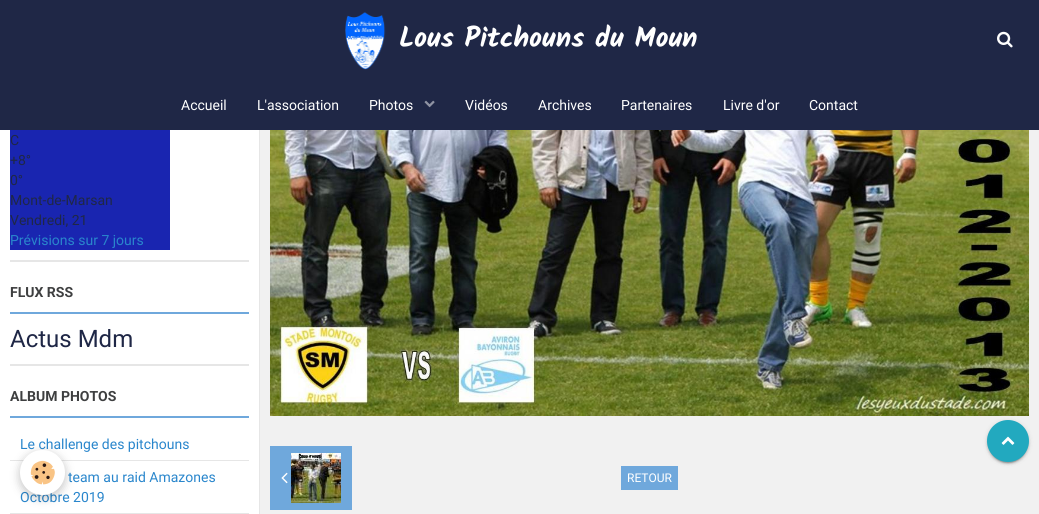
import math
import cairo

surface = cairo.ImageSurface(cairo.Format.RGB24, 1039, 514)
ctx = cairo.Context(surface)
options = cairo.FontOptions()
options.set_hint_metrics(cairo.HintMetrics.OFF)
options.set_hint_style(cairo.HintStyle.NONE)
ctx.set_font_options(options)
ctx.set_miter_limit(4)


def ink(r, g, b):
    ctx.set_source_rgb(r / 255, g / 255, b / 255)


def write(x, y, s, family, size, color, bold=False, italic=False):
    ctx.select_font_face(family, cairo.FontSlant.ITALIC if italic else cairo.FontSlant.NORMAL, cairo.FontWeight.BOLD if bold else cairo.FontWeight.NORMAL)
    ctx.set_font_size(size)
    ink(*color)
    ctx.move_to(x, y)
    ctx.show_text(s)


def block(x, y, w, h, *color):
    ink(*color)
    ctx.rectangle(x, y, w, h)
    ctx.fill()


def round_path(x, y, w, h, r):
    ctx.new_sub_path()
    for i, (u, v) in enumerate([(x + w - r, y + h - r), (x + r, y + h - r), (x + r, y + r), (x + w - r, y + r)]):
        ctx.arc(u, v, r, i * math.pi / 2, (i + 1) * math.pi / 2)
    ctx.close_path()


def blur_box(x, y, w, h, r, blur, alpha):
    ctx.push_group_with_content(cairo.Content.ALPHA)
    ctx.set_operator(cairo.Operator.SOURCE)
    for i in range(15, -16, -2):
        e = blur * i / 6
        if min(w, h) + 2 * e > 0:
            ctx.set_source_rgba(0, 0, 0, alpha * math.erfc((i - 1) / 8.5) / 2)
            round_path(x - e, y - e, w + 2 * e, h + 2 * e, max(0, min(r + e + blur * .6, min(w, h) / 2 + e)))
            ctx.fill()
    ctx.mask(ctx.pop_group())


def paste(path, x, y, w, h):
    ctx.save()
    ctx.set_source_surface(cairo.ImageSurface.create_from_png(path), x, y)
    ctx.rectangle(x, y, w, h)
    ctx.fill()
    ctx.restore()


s1 = dict(family="Kalam", size=28, color=(255, 255, 255), bold=True)
s2 = dict(family="Roboto", size=14, color=(255, 255, 255))
s3 = dict(family="Roboto", size=14, color=(31, 39, 70))
s4 = dict(family="Roboto", size=14, color=(41, 134, 204))
s5 = dict(family="Roboto", size=14, color=(62, 63, 64), bold=True)
s6 = dict(family="Roboto", size=24, color=(31, 39, 70))
s7 = dict(family="Roboto", size=12, color=(255, 255, 255))

ink(241, 241, 241)
ctx.paint()
block(0, 0, 1039, 130, 31, 39, 70)
paste("pic1.png", 345, 12, 41, 58)
write(399, 47, "Lous Pitchouns du Moun", **s1)
paste("pic2.png", 997, 31, 16, 17)
write(181, 110, "Accueil", **s2)
write(257, 110, "L'association", **s2)
write(369, 110, "Photos", **s2)
paste("pic3.png", 424, 100, 11, 8)
write(465, 110, "Vidéos", **s2)
write(538, 110, "Archives", **s2)
write(621, 110, "Partenaires", **s2)
write(723, 110, "Livre d'or", **s2)
write(809, 110, "Contact", **s2)
block(0, 130, 259, 384, 255, 255, 255)
block(259, 130, 1, 384, 230, 230, 230)
block(10, 130, 160, 120, 25, 37, 176)
write(10, 145, "C", **s3)
write(10, 165, "+8°", **s3)
write(10, 185, "0°", **s3)
write(10, 205, "Mont-de-Marsan", **s3)
write(10, 225, "Vendredi, 21", **s3)
write(10, 245, "Prévisions sur 7 jours", **s4)
block(10, 260, 239, 2, 230, 230, 230)
block(10, 312, 239, 2, 111, 168, 220)
write(10, 297, "FLUX RSS", **s5)
write(10, 347, "Actus Mdm", **s6)
block(10, 364, 239, 2, 230, 230, 230)
block(10, 416, 239, 2, 111, 168, 220)
write(10, 401, "ALBUM PHOTOS", **s5)
block(10, 460, 239, 1, 230, 230, 230)
write(20, 449, "Le challenge des pitchouns", **s4)
block(10, 513, 239, 1, 230, 230, 230)
write(68, 482, "team au raid Amazones", **s4)
write(20, 502, "Octobre 2019", **s4)
paste("pic4.png", 270, 130, 759, 286)
block(270, 446, 82, 64, 111, 168, 220)
paste("pic5.png", 281, 472, 7, 12)
paste("pic6.png", 291, 453, 50, 50)
block(621, 466, 57, 24, 111, 168, 220)
write(627, 482, "RETOUR", **s7)
ink(0, 0, 0)
blur_box(987, 421, 42, 42, 21, 2.5, 0.12)
blur_box(989, 425, 38, 38, 19, 0.5, 0.2)
blur_box(987, 422, 42, 42, 21, 1, 0.14)
ink(34, 169, 191)
ctx.arc(1008, 441, 21, 0, 2 * math.pi)
ctx.fill()
paste("pic7.png", 1001, 436, 14, 9)
ink(0, 0, 0)
blur_box(20, 453, 45, 45, 22.5, 5, 0.24)
ink(255, 255, 255)
ctx.arc(42.5, 472.5, 22.5, 0, 2 * math.pi)
ctx.fill()
paste("pic8.png", 30, 460, 25, 25)
surface.write_to_png("screenshot.png")
